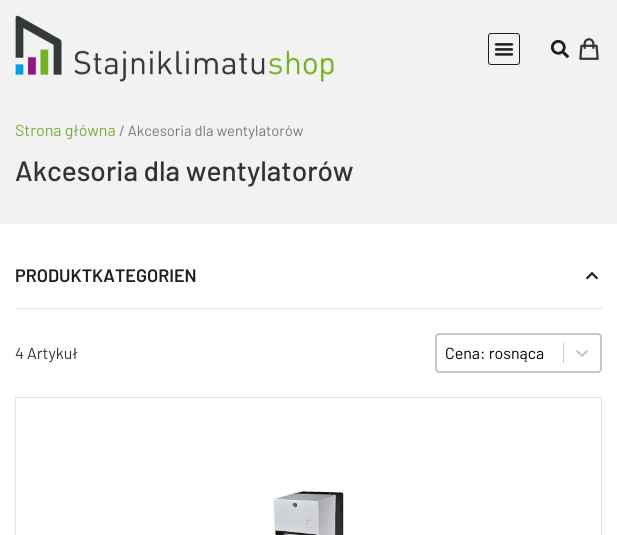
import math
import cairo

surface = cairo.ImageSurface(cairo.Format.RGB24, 617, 535)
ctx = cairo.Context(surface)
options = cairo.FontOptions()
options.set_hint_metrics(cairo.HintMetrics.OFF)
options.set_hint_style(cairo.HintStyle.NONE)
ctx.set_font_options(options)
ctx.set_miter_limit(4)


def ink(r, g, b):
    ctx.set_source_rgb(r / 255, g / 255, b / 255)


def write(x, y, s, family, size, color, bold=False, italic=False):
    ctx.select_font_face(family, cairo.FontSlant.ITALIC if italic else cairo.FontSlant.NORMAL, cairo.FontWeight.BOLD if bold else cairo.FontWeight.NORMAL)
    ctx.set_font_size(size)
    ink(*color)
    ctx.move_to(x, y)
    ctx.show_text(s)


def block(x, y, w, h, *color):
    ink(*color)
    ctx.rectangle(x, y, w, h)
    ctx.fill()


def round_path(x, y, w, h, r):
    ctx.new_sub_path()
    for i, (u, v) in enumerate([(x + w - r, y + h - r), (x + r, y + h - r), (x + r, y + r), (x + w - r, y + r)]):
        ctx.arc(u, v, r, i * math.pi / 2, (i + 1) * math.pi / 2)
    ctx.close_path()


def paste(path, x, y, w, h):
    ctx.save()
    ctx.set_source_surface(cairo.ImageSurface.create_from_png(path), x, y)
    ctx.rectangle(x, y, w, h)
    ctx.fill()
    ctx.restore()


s1 = dict(family="Barlow", size=16, color=(121, 174, 54))
s2 = dict(family="Barlow", size=14.75, color=(118, 118, 118))
s3 = dict(family="Barlow Medium", size=28, color=(51, 51, 51))
s4 = dict(family="Barlow SemiBold", size=18, color=(32, 29, 29))
s5 = dict(family="Barlow", size=16, color=(51, 51, 51))
s6 = dict(family="Barlow", size=16, color=(0, 0, 0))

ink(255, 255, 255)
ctx.paint()
block(0, 0, 617, 224, 242, 242, 242)
paste("pic1.png", 15, 15, 319, 67)
round_path(488.5, 33.5, 31, 31, 2.5)
ink(32, 29, 29)
ctx.set_line_width(1)
ctx.stroke()
paste("pic2.png", 494, 43, 20, 13)
paste("pic3.png", 551, 40, 18, 18)
paste("pic4.png", 579, 38, 20, 22)
write(15, 136, "Strona główna", **s1)
write(119, 136, "/ Akcesoria dla wentylatorów", **s2)
write(15, 181, "Akcesoria dla wentylatorów", **s3)
block(15, 308, 587, 1, 226, 226, 226)
write(15, 282, "PRODUKTKATEGORIEN", **s4)
paste("pic5.png", 586, 272, 12, 8)
write(15, 359, "4 Artykuł", **s5)
round_path(436, 334, 165, 38, 3)
ink(199, 199, 199)
ctx.set_line_width(2)
ctx.stroke()
write(445, 359, "Cena: rosnąca", **s6)
block(563, 343, 1, 20, 199, 199, 199)
paste("pic6.png", 576, 350, 12, 7)
ctx.rectangle(15.5, 397.5, 586, 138)
ink(226, 226, 226)
ctx.set_line_width(1)
ctx.stroke()
paste("pic7.png", 273, 491, 71, 44)
surface.write_to_png("screenshot.png")
